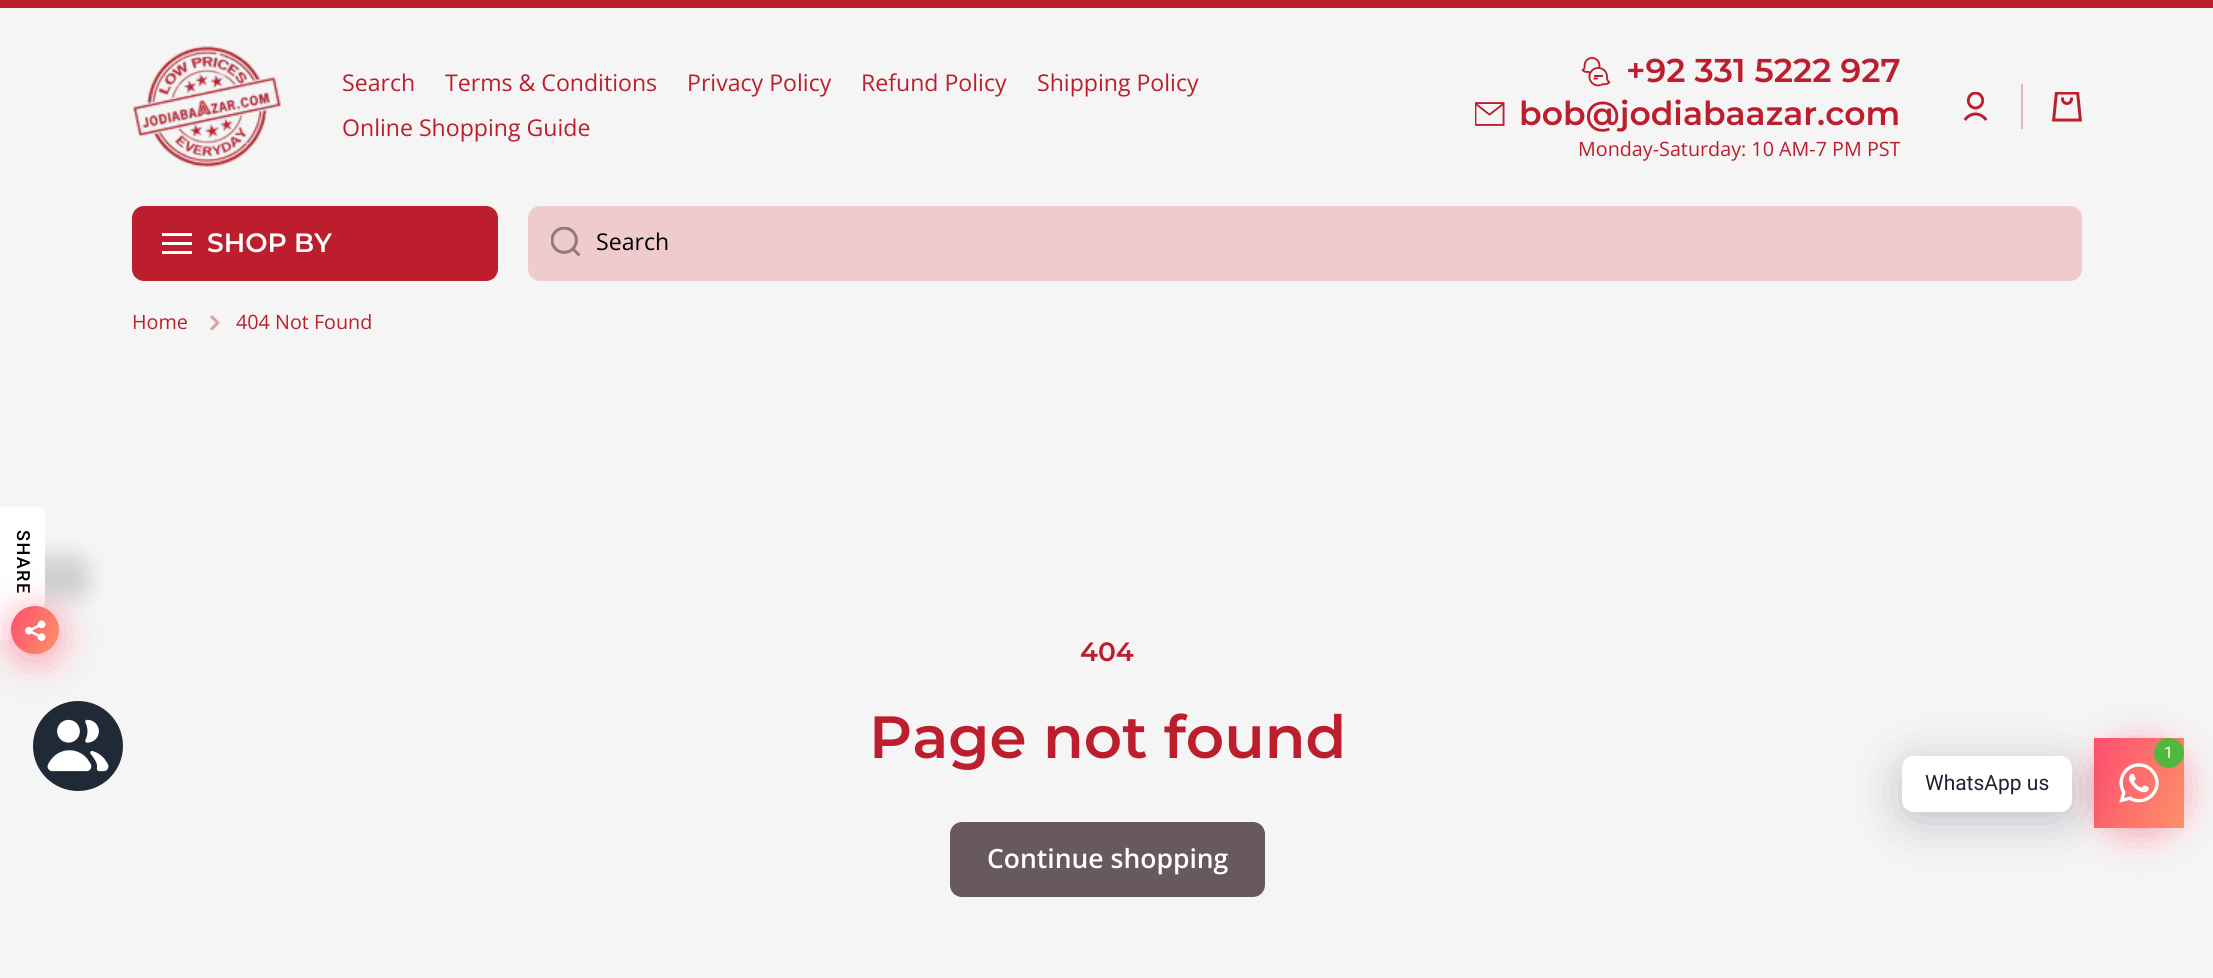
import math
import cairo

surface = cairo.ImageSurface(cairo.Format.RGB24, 2213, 978)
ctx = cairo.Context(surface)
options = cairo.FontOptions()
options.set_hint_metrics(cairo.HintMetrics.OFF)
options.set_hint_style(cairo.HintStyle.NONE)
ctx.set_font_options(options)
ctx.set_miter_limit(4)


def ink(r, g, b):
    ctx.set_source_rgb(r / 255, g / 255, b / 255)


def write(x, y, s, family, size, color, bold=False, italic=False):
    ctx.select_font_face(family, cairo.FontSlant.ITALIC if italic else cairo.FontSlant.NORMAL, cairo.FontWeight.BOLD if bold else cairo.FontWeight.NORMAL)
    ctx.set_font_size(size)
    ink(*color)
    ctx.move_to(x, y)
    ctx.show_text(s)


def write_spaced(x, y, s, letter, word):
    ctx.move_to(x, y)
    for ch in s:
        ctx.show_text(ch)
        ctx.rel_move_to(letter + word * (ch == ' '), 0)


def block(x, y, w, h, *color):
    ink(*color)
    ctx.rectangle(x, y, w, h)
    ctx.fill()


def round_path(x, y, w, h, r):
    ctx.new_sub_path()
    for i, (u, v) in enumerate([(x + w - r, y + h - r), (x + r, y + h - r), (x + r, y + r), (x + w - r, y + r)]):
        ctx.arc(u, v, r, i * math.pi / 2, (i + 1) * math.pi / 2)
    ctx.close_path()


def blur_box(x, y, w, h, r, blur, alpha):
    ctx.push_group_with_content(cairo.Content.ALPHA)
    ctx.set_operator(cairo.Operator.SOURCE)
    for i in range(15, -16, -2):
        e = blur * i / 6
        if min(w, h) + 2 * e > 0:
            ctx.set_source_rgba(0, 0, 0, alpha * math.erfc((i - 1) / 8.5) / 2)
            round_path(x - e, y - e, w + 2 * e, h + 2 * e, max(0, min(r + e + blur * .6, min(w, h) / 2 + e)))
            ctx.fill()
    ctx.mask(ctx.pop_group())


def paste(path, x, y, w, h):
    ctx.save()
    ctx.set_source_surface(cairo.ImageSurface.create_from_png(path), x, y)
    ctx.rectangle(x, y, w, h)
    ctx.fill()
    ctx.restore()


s1 = dict(family="Open Sans", size=23.1, color=(189, 30, 46))
s2 = dict(family="Montserrat SemiBold", size=33, color=(189, 30, 46))
s3 = dict(family="Open Sans", size=19.75, color=(189, 30, 46))
s4 = dict(family="Montserrat SemiBold", size=26.5, color=(255, 255, 255))
s5 = dict(family="Open Sans", size=23.1, color=(0, 0, 0))
s6 = dict(family="Montserrat SemiBold", size=26.5, color=(189, 30, 46))
s7 = dict(family="Montserrat SemiBold", size=59.5, color=(189, 30, 46))
s8 = dict(family="Open Sans SemiBold", size=26.5, color=(255, 255, 255))
s9 = dict(family="Roboto", size=16, color=(255, 255, 255))
s10 = dict(family="Roboto", size=21, color=(30, 36, 51))

ink(245, 245, 245)
ctx.paint()
block(0, 0, 2213, 8, 189, 30, 46)
paste("pic1.png", 133, 46, 148, 121)
write(342, 91, "Search", **s1)
write(445, 91, "Terms & Conditions", **s1)
write(687, 91, "Privacy Policy", **s1)
write(861, 91, "Refund Policy", **s1)
write(1037, 91, "Shipping Policy", **s1)
write(342, 136, "Online Shopping Guide", **s1)
paste("pic2.png", 1581, 57, 30, 30)
write(1626, 82, "+92 331 5222 927", **s2)
paste("pic3.png", 1475, 102, 30, 24)
write(1519, 125, "bob@jodiabaazar.com", **s2)
write(1578, 156, "Monday-Saturday: 10 AM-7 PM PST", **s3)
paste("pic4.png", 1963, 92, 25, 29)
block(2021, 84, 2, 45, 228, 181, 185)
paste("pic5.png", 2052, 92, 30, 30)
ink(189, 30, 46)
round_path(132, 206, 366, 75, 12)
ctx.fill()
block(162, 233, 30, 3, 255, 255, 255)
block(162, 242, 30, 3, 255, 255, 255)
block(162, 251, 30, 3, 255, 255, 255)
write(207, 252, "SHOP BY", **s4)
ink(240, 203, 205)
round_path(528, 206, 1554, 75, 12)
ctx.fill()
paste("pic6.png", 551, 227, 30, 30)
write(596, 250, "Search", **s5)
write(132, 329, "Home", **s3)
paste("pic7.png", 210, 315, 10, 16)
write(236, 329, "404 Not Found", **s3)
write(1080, 661, "404", **s6)
write(869, 758, "Page not found", **s7)
ink(103, 89, 94)
round_path(950, 822, 315, 75, 12)
ctx.fill()
write(987, 868, "Continue shopping", **s8)
ink(0, 0, 0)
blur_box(-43, 555, 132, 45, 42, 10.5, 0.15)
ink(255, 255, 255)
ctx.new_path()
ctx.move_to(0, 640)
ctx.line_to(0, 507)
ctx.line_to(39, 507)
ctx.curve_to(42, 507, 45, 510, 45, 513)
ctx.line_to(45, 598)
ctx.curve_to(45, 621, 26, 640, 3, 640)
ctx.close_path()
ctx.fill()
ctx.select_font_face("Roboto Medium")
ctx.set_font_size(18)
ink(0, 0, 0)
ctx.save()
ctx.translate(17, 530)
ctx.rotate(90 * math.pi / 180)
write_spaced(0, 0, "SHARE", 1.5, 0)
ctx.restore()
ink(255, 78, 111)
blur_box(11, 612, 48, 48, 24, 18, 0.5)
gradient = cairo.LinearGradient(5.6, 617, 63, 643)
gradient.add_color_stop_rgba(0, 1, 0.306, 0.435, 1)
gradient.add_color_stop_rgba(1, 0.984, 0.569, 0.408, 1)
ctx.set_source(gradient)
ctx.arc(35, 630, 24, 0, 2 * math.pi)
ctx.fill()
paste("pic8.png", 25, 620, 21, 21)
ink(255, 78, 111)
blur_box(2094, 744, 90, 90, 45, 18, 0.5)
gradient = cairo.LinearGradient(2085, 758, 2193, 808)
gradient.add_color_stop_rgba(0, 1, 0.306, 0.435, 1)
gradient.add_color_stop_rgba(1, 0.984, 0.569, 0.408, 1)
ctx.set_source(gradient)
ctx.rectangle(2094, 738, 90, 90)
ctx.fill()
ink(0, 18, 46)
blur_box(1902, 765, 170, 56, 12, 24, 0.24)
paste("pic9.png", 2119, 763, 40, 40)
ink(80, 184, 60)
ctx.arc(2169, 753, 15, 0, 2 * math.pi)
ctx.fill()
write(2164, 758, "1", **s9)
round_path(1902, 756, 170, 56, 12)
ctx.fill()
write(1925, 790, "WhatsApp us", **s10)
ink(32, 42, 54)
ctx.new_path()
ctx.arc(78, 746, 45, 0, 2 * math.pi)
ctx.fill()
paste("pic10.png", 47, 719, 62, 53)
surface.write_to_png("screenshot.png")
